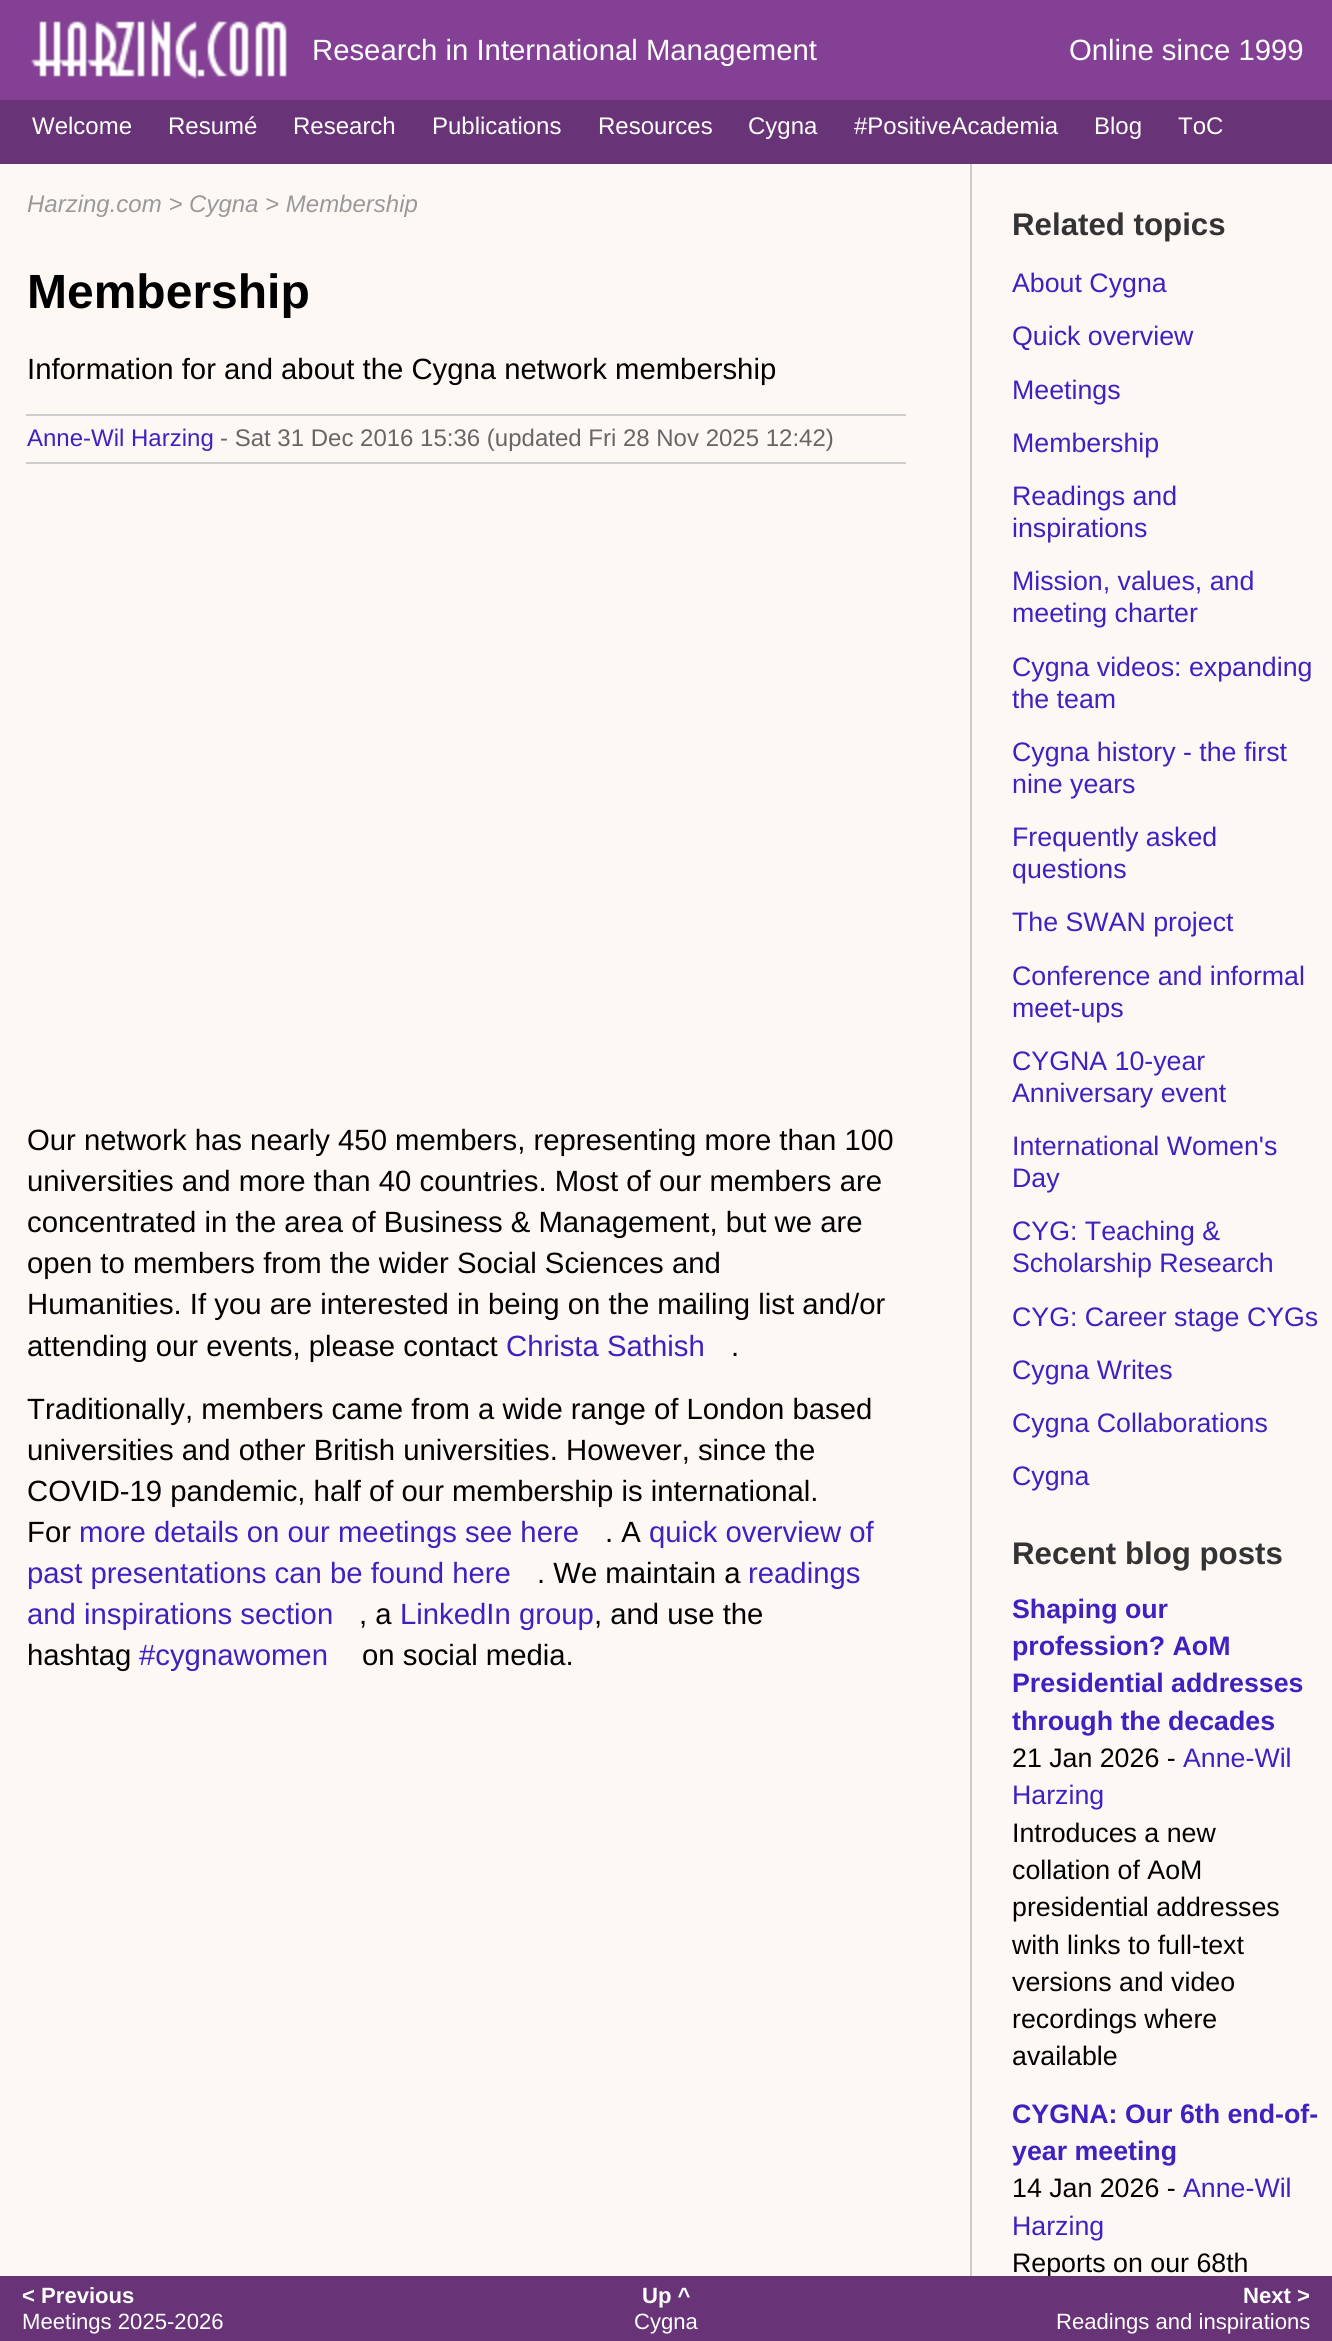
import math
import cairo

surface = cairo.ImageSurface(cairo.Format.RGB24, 1332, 2341)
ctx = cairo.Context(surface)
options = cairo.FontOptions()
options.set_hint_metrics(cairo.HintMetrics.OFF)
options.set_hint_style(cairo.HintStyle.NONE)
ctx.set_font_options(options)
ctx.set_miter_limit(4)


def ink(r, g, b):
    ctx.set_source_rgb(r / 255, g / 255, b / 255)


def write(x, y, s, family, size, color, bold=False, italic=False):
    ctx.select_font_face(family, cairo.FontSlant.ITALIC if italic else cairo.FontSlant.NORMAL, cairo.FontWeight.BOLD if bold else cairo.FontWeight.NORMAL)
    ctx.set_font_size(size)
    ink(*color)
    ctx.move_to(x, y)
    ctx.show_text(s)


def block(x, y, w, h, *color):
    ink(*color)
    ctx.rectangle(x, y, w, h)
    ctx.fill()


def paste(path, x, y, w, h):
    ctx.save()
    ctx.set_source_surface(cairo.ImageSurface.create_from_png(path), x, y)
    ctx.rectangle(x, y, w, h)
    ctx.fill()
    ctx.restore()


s1 = dict(family="Liberation Sans", size=29.3, color=(255, 255, 255))
s2 = dict(family="Liberation Sans", size=24, color=(255, 255, 255))
s3 = dict(family="Liberation Sans", size=24, color=(153, 153, 153), italic=True)
s4 = dict(family="Liberation Sans", size=48, color=(0, 0, 0), bold=True)
s5 = dict(family="Liberation Sans", size=29.3, color=(0, 0, 0))
s6 = dict(family="Liberation Sans", size=24, color=(64, 32, 192))
s7 = dict(family="Liberation Sans", size=24, color=(102, 102, 102))
s8 = dict(family="Liberation Sans", size=29.3, color=(64, 32, 192))
s9 = dict(family="Liberation Sans", size=31.25, color=(51, 51, 51), bold=True)
s10 = dict(family="Liberation Sans", size=26.75, color=(64, 32, 192))
s11 = dict(family="Liberation Sans", size=26.75, color=(64, 32, 192), bold=True)
s12 = dict(family="Liberation Sans", size=26.75, color=(0, 0, 0))
s13 = dict(family="Liberation Sans", size=22.1, color=(255, 255, 255), bold=True)
s14 = dict(family="Liberation Sans", size=22.1, color=(255, 255, 255))

ink(132, 64, 149)
ctx.paint()
paste("pic1.png", 31, 18, 256, 61)
write(312, 60, "Research in International Management", **s1)
write(1069, 60, "Online since 1999", **s1)
block(0, 100, 1332, 64, 105, 51, 119)
write(32, 134, "Welcome", **s2)
write(168, 134, "Resumé", **s2)
write(293, 134, "Research", **s2)
write(432, 134, "Publications", **s2)
write(598, 134, "Resources", **s2)
write(748, 134, "Cygna", **s2)
write(854, 134, "#PositiveAcademia", **s2)
write(1094, 134, "Blog", **s2)
write(1178, 134, "ToC", **s2)
block(0, 164, 1332, 2112, 254, 248, 245)
write(27, 212, "Harzing.com > Cygna > Membership", **s3)
write(27, 308, "Membership", **s4)
write(27, 379, "Information for and about the Cygna network membership", **s5)
block(26, 414, 880, 2, 204, 204, 204)
block(26, 462, 880, 2, 204, 204, 204)
write(27, 446, "Anne-Wil Harzing", **s6)
write(220, 446, "- Sat 31 Dec 2016 15:36 (updated Fri 28 Nov 2025 12:42)", **s7)
write(27, 1150, "Our network has nearly 450 members, representing more than 100", **s5)
write(27, 1191, "universities and more than 40 countries. Most of our members are", **s5)
write(27, 1232, "concentrated in the area of Business & Management, but we are", **s5)
write(27, 1273, "open to members from the wider Social Sciences and", **s5)
write(27, 1314, "Humanities. If you are interested in being on the mailing list and/or", **s5)
write(27, 1356, "attending our events, please contact", **s5)
write(506, 1356, "Christa Sathish", **s8)
write(731, 1356, ".", **s5)
write(27, 1419, "Traditionally, members came from a wide range of London based", **s5)
write(27, 1460, "universities and other British universities. However, since the", **s5)
write(27, 1501, "COVID-19 pandemic, half of our membership is international.", **s5)
write(27, 1542, "For", **s5)
write(79, 1542, "more details on our meetings see here", **s8)
write(605, 1542, ". A", **s5)
write(649, 1542, "quick overview of", **s8)
write(27, 1583, "past presentations can be found here", **s8)
write(537, 1583, ". We maintain a", **s5)
write(748, 1583, "readings", **s8)
write(27, 1624, "and inspirations section", **s8)
write(359, 1624, ", a", **s5)
write(400, 1624, "LinkedIn group", **s8)
write(594, 1624, ", and use the", **s5)
write(27, 1665, "hashtag", **s5)
write(139, 1665, "#cygnawomen", **s8)
write(362, 1665, "on social media.", **s5)
block(970, 164, 2, 2112, 204, 204, 204)
write(1012, 235, "Related topics", **s9)
write(1012, 292, "About Cygna", **s10)
write(1012, 345, "Quick overview", **s10)
write(1012, 399, "Meetings", **s10)
write(1012, 452, "Membership", **s10)
write(1012, 505, "Readings and", **s10)
write(1012, 537, "inspirations", **s10)
write(1012, 590, "Mission, values, and", **s10)
write(1012, 622, "meeting charter", **s10)
write(1012, 676, "Cygna videos: expanding", **s10)
write(1012, 708, "the team", **s10)
write(1012, 761, "Cygna history - the first", **s10)
write(1012, 793, "nine years", **s10)
write(1012, 846, "Frequently asked", **s10)
write(1012, 878, "questions", **s10)
write(1012, 931, "The SWAN project", **s10)
write(1012, 985, "Conference and informal", **s10)
write(1012, 1017, "meet-ups", **s10)
write(1012, 1070, "CYGNA 10-year", **s10)
write(1012, 1102, "Anniversary event", **s10)
write(1012, 1155, "International Women's", **s10)
write(1012, 1187, "Day", **s10)
write(1012, 1240, "CYG: Teaching &", **s10)
write(1012, 1272, "Scholarship Research", **s10)
write(1012, 1326, "CYG: Career stage CYGs", **s10)
write(1012, 1379, "Cygna Writes", **s10)
write(1012, 1432, "Cygna Collaborations", **s10)
write(1012, 1485, "Cygna", **s10)
write(1012, 1564, "Recent blog posts", **s9)
write(1012, 1618, "Shaping our", **s11)
write(1012, 1655, "profession? AoM", **s11)
write(1012, 1692, "Presidential addresses", **s11)
write(1012, 1730, "through the decades", **s11)
write(1012, 1767, "21 Jan 2026 -", **s12)
write(1183, 1767, "Anne-Wil", **s10)
write(1012, 1804, "Harzing", **s10)
write(1012, 1842, "Introduces a new", **s12)
write(1012, 1879, "collation of AoM", **s12)
write(1012, 1916, "presidential addresses", **s12)
write(1012, 1954, "with links to full-text", **s12)
write(1012, 1991, "versions and video", **s12)
write(1012, 2028, "recordings where", **s12)
write(1012, 2065, "available", **s12)
write(1012, 2123, "CYGNA: Our 6th end-of-", **s11)
write(1012, 2160, "year meeting", **s11)
write(1012, 2197, "14 Jan 2026 -", **s12)
write(1183, 2197, "Anne-Wil", **s10)
write(1012, 2235, "Harzing", **s10)
write(1012, 2272, "Reports on our 68th", **s12)
block(0, 2276, 1332, 65, 105, 51, 119)
write(22, 2303, "< Previous", **s13)
write(22, 2329, "Meetings 2025-2026", **s14)
write(642, 2303, "Up ^", **s13)
write(634, 2329, "Cygna", **s14)
write(1243, 2303, "Next >", **s13)
write(1056, 2329, "Readings and inspirations", **s14)
surface.write_to_png("screenshot.png")
